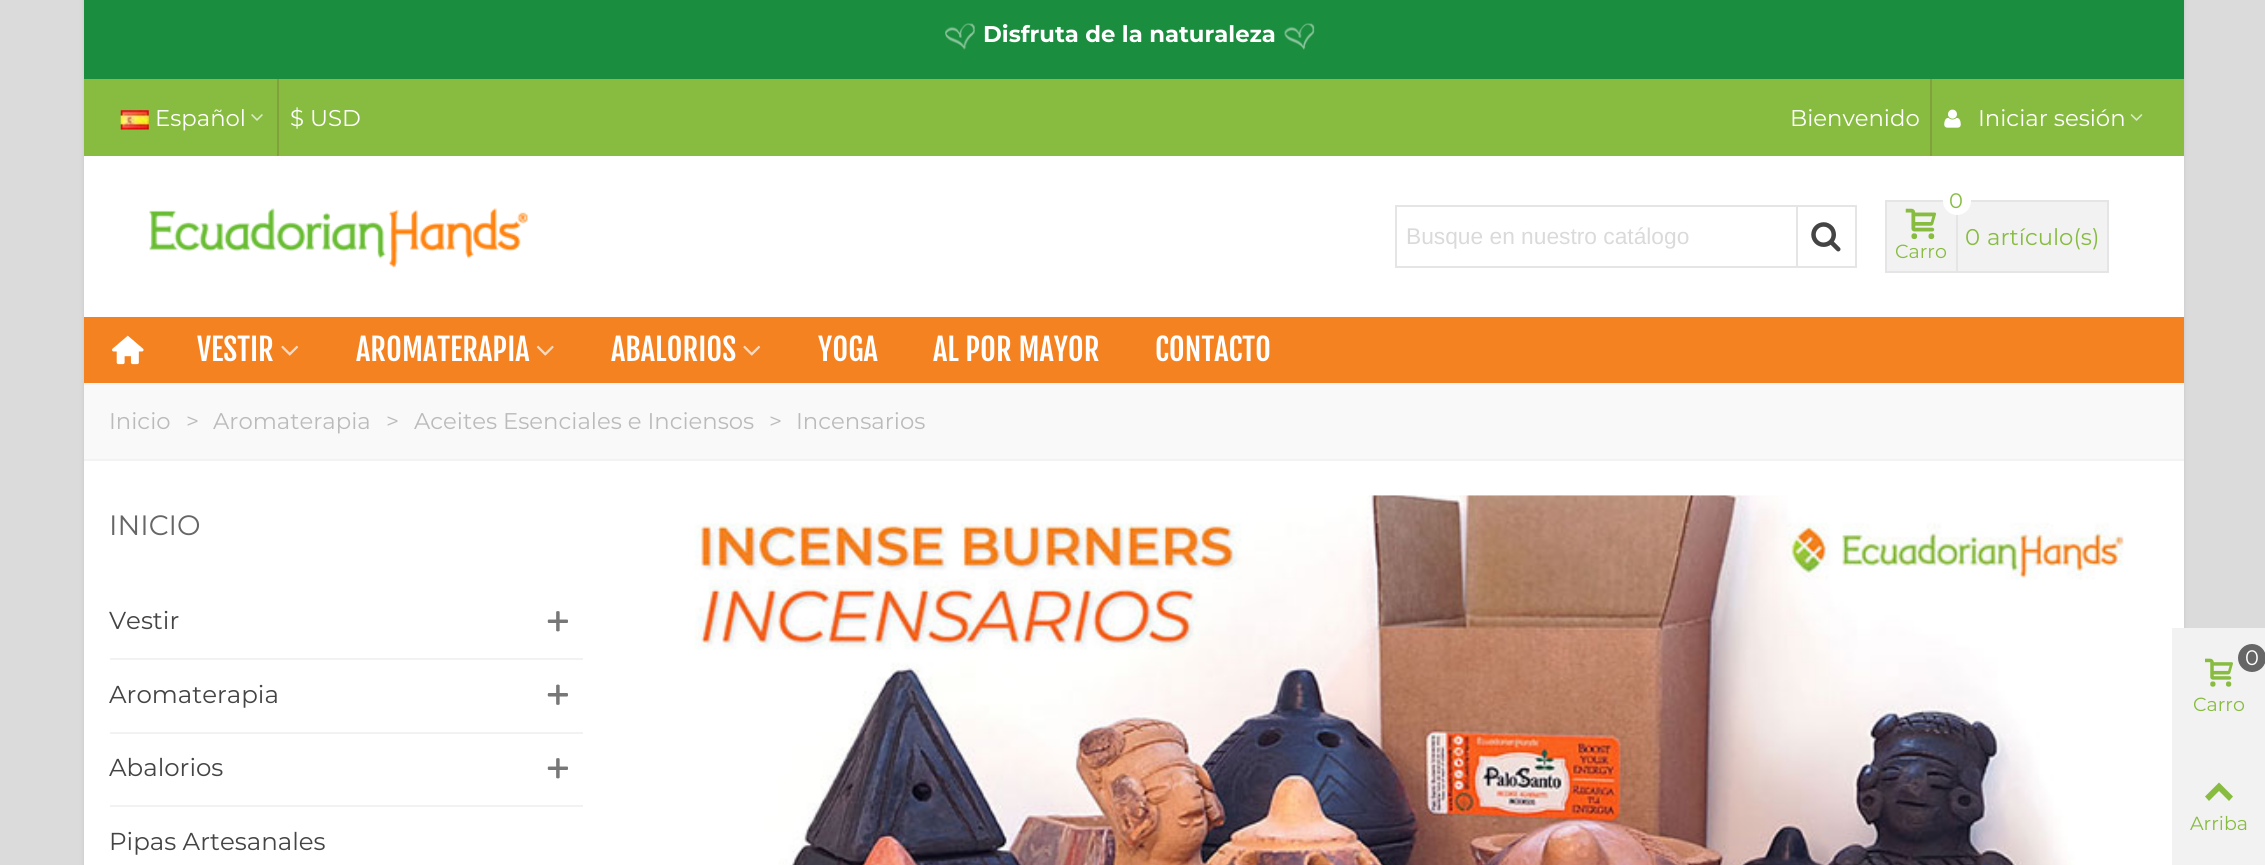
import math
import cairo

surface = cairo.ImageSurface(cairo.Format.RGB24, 2265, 865)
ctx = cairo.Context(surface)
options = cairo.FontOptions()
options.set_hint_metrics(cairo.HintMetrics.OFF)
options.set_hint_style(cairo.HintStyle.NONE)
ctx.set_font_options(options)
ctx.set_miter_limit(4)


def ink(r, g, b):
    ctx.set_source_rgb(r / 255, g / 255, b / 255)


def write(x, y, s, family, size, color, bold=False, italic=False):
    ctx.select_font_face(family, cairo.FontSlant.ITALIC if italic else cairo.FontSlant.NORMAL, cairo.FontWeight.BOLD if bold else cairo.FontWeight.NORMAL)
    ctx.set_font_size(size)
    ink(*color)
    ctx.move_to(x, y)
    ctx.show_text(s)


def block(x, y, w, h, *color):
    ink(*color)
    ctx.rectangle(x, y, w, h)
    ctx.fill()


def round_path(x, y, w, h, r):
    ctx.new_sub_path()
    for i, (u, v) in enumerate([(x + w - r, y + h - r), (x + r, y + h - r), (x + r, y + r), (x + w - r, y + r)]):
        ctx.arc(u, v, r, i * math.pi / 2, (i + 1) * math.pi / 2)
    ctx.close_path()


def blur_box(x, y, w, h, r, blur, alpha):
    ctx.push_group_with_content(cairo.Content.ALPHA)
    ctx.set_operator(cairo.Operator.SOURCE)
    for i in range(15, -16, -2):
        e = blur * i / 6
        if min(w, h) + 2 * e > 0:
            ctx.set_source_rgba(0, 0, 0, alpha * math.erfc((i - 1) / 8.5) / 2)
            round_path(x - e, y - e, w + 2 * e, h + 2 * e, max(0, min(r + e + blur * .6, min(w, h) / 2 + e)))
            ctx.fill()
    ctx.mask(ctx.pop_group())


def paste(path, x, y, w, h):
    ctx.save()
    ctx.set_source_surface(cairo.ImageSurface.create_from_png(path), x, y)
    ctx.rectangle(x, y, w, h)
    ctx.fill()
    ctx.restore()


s1 = dict(family="Montserrat", size=22.75, color=(255, 255, 255), bold=True)
s2 = dict(family="Montserrat", size=22.75, color=(255, 255, 255))
s3 = dict(family="Liberation Sans", size=22.75, color=(218, 218, 218))
s4 = dict(family="Montserrat", size=21, color=(135, 188, 64))
s5 = dict(family="Montserrat", size=19, color=(135, 188, 64))
s6 = dict(family="Montserrat", size=22.75, color=(135, 188, 64))
s7 = dict(family="Fjalla One", size=30.5, color=(255, 255, 255))
s8 = dict(family="Montserrat", size=22.75, color=(187, 187, 187))
s9 = dict(family="Montserrat", size=28, color=(102, 102, 102))
s10 = dict(family="Montserrat", size=24.5, color=(68, 68, 68))
s11 = dict(family="Montserrat", size=21, color=(255, 255, 255))

ink(219, 219, 219)
ctx.paint()
ink(0, 0, 0)
blur_box(84, 0, 2100, 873, 0, 2.5, 0.1)
block(84, 156, 2100, 709, 255, 255, 255)
block(84, 0, 2100, 79, 27, 141, 62)
paste("pic1.png", 945, 23, 30, 27)
write(983, 42, "Disfruta de la naturaleza", **s1)
paste("pic2.png", 1284, 23, 31, 27)
block(84, 79, 2100, 77, 135, 188, 64)
paste("pic3.png", 120, 110, 29, 20)
write(155, 126, "Español", **s2)
paste("pic4.png", 251, 114, 12, 7)
block(277, 79, 2, 77, 129, 162, 58)
write(290, 126, "$ USD", **s2)
write(1790, 126, "Bienvenido", **s2)
block(1930, 79, 2, 77, 129, 162, 58)
paste("pic5.png", 1944, 109, 17, 19)
write(1978, 126, "Iniciar sesión", **s2)
paste("pic6.png", 2130, 114, 13, 7)
paste("pic7.png", 149, 208, 379, 60)
ctx.rectangle(1396, 206, 460, 61)
ink(229, 229, 229)
ctx.stroke()
write(1406, 244, "Busque en nuestro catálogo", **s3)
block(1796, 207, 2, 59, 229, 229, 229)
paste("pic8.png", 1811, 222, 30, 30)
ink(242, 242, 242)
ctx.rectangle(1886, 201, 71, 71)
ctx.fill_preserve()
ink(229, 229, 229)
ctx.stroke()
block(1958, 202, 149, 69, 242, 242, 242)
block(1970, 200, 139, 2, 229, 229, 229)
ink(255, 255, 255)
ctx.arc(1957, 201, 14, 0, 2 * math.pi)
ctx.fill()
write(1949, 208, "0", **s4)
paste("pic9.png", 1905, 208, 32, 32)
write(1895, 258, "Carro", **s5)
block(1958, 271, 21, 2, 229, 229, 229)
write(1965, 245, "0", **s6)
block(2107, 200, 2, 73, 229, 229, 229)
block(1979, 271, 130, 2, 229, 229, 229)
write(1987, 245, "artículo(s)", **s6)
block(84, 317, 2100, 66, 245, 130, 32)
paste("pic10.png", 112, 335, 32, 30)
write(197, 361, "VESTIR", **s7)
paste("pic11.png", 281, 345, 18, 11)
write(356, 361, "AROMATERAPIA", **s7)
paste("pic12.png", 536, 345, 18, 11)
write(611, 361, "ABALORIOS", **s7)
paste("pic11.png", 743, 345, 18, 11)
write(818, 361, "YOGA", **s7)
write(933, 361, "AL POR MAYOR", **s7)
write(1155, 361, "CONTACTO", **s7)
block(84, 385, 2100, 74, 249, 249, 249)
block(84, 383, 2100, 2, 243, 243, 243)
block(84, 459, 2100, 2, 243, 243, 243)
write(109, 429, "Inicio", **s8)
write(186, 429, ">", **s8)
write(213, 429, "Aromaterapia", **s8)
write(386, 429, ">", **s8)
write(414, 429, "Aceites Esenciales e Inciensos", **s8)
write(769, 429, ">", **s8)
write(796, 429, "Incensarios", **s8)
write(109, 535, "INICIO", **s9)
block(110, 658, 473, 2, 242, 242, 242)
write(109, 629, "Vestir", **s10)
paste("pic13.png", 547, 611, 21, 21)
block(110, 732, 473, 2, 242, 242, 242)
write(109, 703, "Aromaterapia", **s10)
paste("pic14.png", 547, 684, 21, 21)
block(110, 805, 473, 2, 242, 242, 242)
write(109, 776, "Abalorios", **s10)
paste("pic13.png", 547, 758, 21, 21)
write(109, 850, "Pipas Artesanales", **s10)
paste("pic15.png", 694, 495, 1430, 370)
block(2172, 628, 93, 237, 242, 242, 242)
paste("pic16.png", 2205, 658, 28, 29)
ink(102, 102, 102)
ctx.arc(2252, 658, 14, 0, 2 * math.pi)
ctx.fill()
write(2245, 665, "0", **s11)
write(2193, 711, "Carro", **s5)
ctx.new_path()
ctx.move_to(2205, 796.5)
ctx.line_to(2219, 782.5)
ctx.line_to(2233, 796.5)
ctx.line_to(2229, 801)
ctx.line_to(2219, 791)
ctx.line_to(2209, 801)
ctx.close_path()
ctx.fill()
write(2190, 830, "Arriba", **s5)
surface.write_to_png("screenshot.png")
